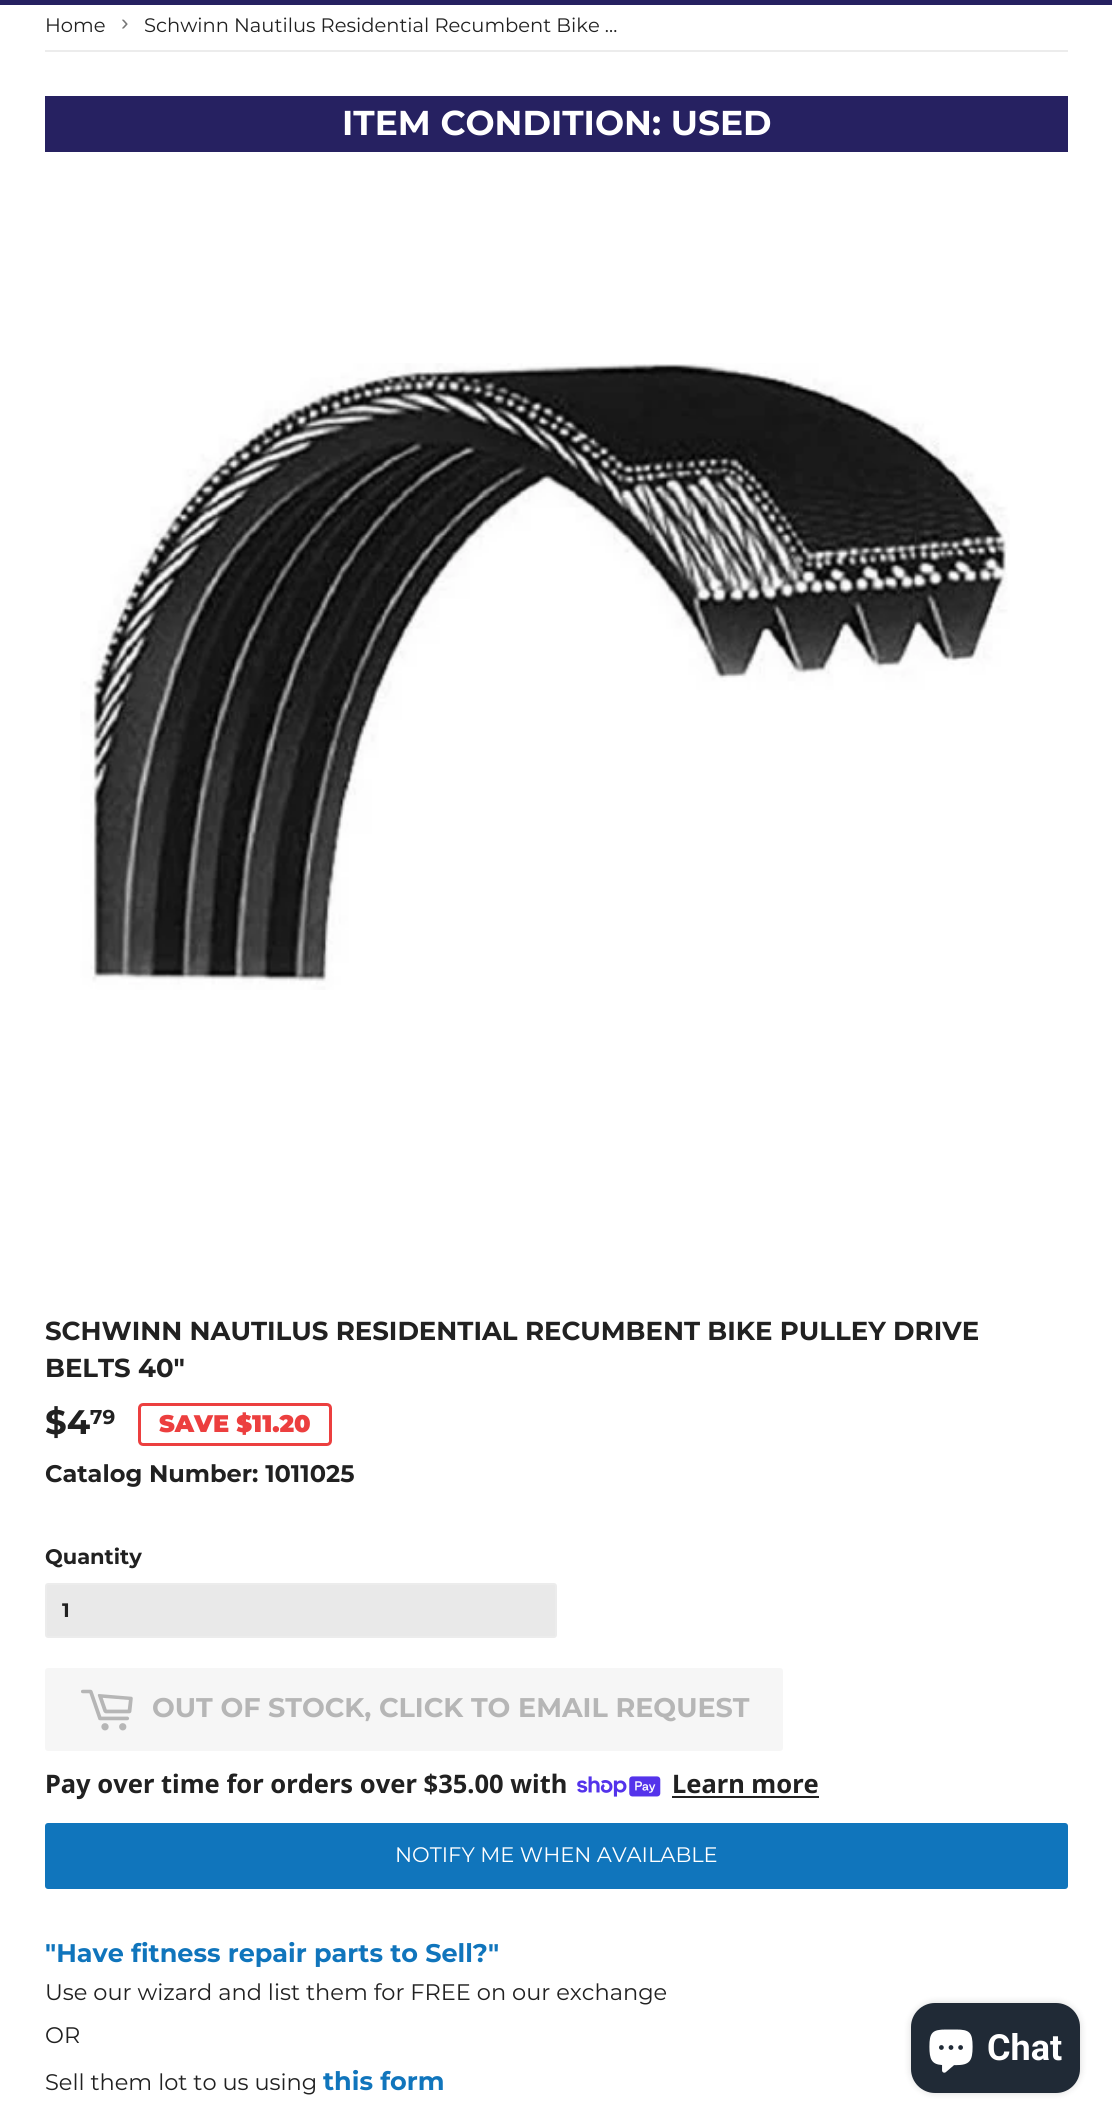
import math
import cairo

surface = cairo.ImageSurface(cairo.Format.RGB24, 1112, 2123)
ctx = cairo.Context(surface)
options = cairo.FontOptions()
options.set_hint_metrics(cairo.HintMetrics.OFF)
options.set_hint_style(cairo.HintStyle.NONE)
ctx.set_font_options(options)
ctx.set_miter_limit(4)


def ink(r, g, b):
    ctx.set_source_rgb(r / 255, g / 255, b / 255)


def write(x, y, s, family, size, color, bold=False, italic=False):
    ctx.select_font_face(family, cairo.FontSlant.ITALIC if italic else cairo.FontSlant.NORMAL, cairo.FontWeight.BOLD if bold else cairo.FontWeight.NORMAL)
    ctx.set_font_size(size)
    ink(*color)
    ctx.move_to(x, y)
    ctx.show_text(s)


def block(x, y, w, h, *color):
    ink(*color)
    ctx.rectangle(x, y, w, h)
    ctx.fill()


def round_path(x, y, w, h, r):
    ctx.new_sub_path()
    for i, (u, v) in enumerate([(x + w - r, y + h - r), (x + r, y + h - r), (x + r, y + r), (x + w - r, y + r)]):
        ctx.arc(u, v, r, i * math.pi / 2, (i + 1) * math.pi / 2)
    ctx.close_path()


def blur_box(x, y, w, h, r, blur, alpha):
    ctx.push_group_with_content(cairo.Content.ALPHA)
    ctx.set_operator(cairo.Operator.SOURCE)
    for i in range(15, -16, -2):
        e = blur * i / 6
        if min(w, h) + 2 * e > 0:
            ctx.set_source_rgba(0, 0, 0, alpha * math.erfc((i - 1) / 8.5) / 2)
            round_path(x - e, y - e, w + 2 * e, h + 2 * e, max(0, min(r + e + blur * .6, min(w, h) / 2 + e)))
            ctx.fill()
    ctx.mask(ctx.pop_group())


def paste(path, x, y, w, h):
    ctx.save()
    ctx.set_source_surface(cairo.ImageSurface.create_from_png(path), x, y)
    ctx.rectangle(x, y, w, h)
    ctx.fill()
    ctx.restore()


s1 = dict(family="Montserrat", size=19.5, color=(33, 33, 33))
s2 = dict(family="Liberation Sans", size=22.5, color=(118, 118, 118))
s3 = dict(family="Montserrat", size=34.5, color=(255, 255, 255), bold=True)
s4 = dict(family="Montserrat", size=26, color=(33, 33, 33), bold=True)
s5 = dict(family="Montserrat", size=34, color=(33, 33, 33), bold=True)
s6 = dict(family="Montserrat", size=20, color=(33, 33, 33), bold=True)
s7 = dict(family="Montserrat Black", size=24, color=(236, 63, 63))
s8 = dict(family="Montserrat", size=24, color=(33, 33, 33), bold=True)
s9 = dict(family="Montserrat", size=21, color=(33, 33, 33), bold=True)
s10 = dict(family="Montserrat", size=19.5, color=(33, 33, 33), bold=True)
s11 = dict(family="Montserrat", size=27, color=(182, 182, 182), bold=True)
s12 = dict(family="Noto Sans", size=25.5, color=(33, 33, 33), bold=True)
s13 = dict(family="Montserrat", size=21, color=(255, 255, 255))
s14 = dict(family="Montserrat", size=25.5, color=(16, 117, 188), bold=True)
s15 = dict(family="Montserrat", size=22.5, color=(33, 33, 33))
s16 = dict(family="Roboto", size=36, color=(255, 255, 255), bold=True)

ink(38, 33, 97)
ctx.paint()
block(0, 5, 1112, 2118, 255, 255, 255)
block(45, 50, 1023, 2, 236, 236, 236)
write(45, 32, "Home", **s1)
write(121, 30, "›", **s2)
write(144, 32, "Schwinn Nautilus Residential Recumbent Bike …", **s1)
block(45, 96, 1023, 56, 38, 33, 97)
write(342, 135, "ITEM CONDITION: USED", **s3)
paste("pic1.png", 80, 363, 930, 627)
write(45, 1340, "SCHWINN NAUTILUS RESIDENTIAL RECUMBENT BIKE PULLEY DRIVE", **s4)
write(45, 1377, "BELTS 40\"", **s4)
write(45, 1434, "$4", **s5)
write(90, 1424, "79", **s6)
round_path(139.5, 1404.5, 191, 40, 3.5)
ink(236, 63, 63)
ctx.set_line_width(3)
ctx.stroke()
write(159, 1432, "SAVE $11.20", **s7)
write(45, 1482, "Catalog Number: 1011025", **s8)
write(45, 1564, "Quantity", **s9)
ink(233, 233, 233)
round_path(46, 1584, 510, 53, 2)
ctx.fill_preserve()
ink(236, 236, 236)
ctx.set_line_width(2)
ctx.stroke()
ctx.save()
ctx.rectangle(62, 1596, 456, 29)
ctx.clip()
write(62, 1617, "1", **s10)
ctx.restore()
ink(246, 246, 246)
round_path(45, 1668, 738, 83, 3)
ctx.fill()
paste("pic2.png", 81, 1689, 52, 42)
write(152, 1717, "OUT OF STOCK, CLICK TO EMAIL REQUEST", **s11)
write(45, 1793, "Pay over time for orders over $35.00 with", **s12)
paste("pic3.png", 577, 1776, 84, 21)
write(672, 1793, "Learn more", **s12)
block(672, 1796, 147, 2, 33, 33, 33)
ink(16, 117, 188)
round_path(45, 1823, 1023, 66, 3)
ctx.fill()
write(395, 1862, "NOTIFY ME WHEN AVAILABLE", **s13)
write(45, 1962, "\"Have fitness repair parts to Sell?\"", **s14)
write(45, 2000, "Use our wizard and list them for FREE on our exchange", **s15)
write(45, 2043, "OR", **s15)
write(45, 2090, "Sell them lot to us using", **s15)
write(323, 2090, "this form", **s14)
ink(0, 0, 0)
blur_box(911, 2003, 169, 90, 24, 4, 0.15)
ink(32, 42, 54)
round_path(911, 2003, 169, 90, 24)
ctx.fill()
paste("pic4.png", 929, 2029, 44, 44)
write(987, 2060, "Chat", **s16)
surface.write_to_png("screenshot.png")
